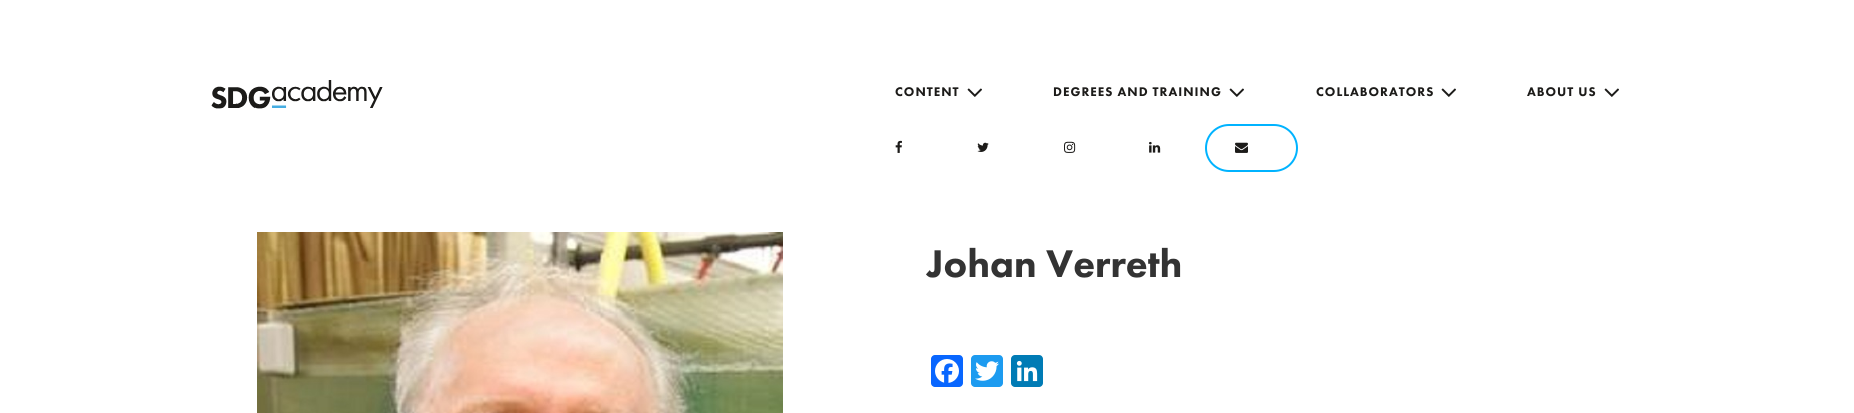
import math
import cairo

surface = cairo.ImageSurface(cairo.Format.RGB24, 1854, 413)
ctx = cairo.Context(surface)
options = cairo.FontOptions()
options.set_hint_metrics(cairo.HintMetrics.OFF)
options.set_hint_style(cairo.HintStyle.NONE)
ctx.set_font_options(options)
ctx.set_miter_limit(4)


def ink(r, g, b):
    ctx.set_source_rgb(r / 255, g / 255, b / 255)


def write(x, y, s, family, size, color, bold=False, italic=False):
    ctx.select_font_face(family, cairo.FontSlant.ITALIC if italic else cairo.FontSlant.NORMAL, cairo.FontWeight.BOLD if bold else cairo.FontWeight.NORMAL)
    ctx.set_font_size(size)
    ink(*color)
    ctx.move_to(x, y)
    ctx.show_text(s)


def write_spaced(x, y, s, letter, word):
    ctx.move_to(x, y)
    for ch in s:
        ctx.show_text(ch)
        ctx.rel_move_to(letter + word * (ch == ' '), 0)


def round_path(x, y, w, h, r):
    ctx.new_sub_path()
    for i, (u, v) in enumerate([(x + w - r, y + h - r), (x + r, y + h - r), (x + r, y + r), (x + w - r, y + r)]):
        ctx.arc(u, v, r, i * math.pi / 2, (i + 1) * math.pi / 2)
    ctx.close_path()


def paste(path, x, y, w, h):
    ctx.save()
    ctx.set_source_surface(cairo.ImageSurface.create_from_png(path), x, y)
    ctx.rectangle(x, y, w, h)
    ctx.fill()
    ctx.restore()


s1 = dict(family="Futura PT Black", size=40, color=(51, 51, 51))

ink(255, 255, 255)
ctx.paint()
paste("pic1.png", 211, 80, 172, 29)
ctx.select_font_face("Futura PT Black")
ctx.set_font_size(13)
ink(28, 27, 25)
write_spaced(895, 96, "CONTENT", 1, 0)
paste("pic2.png", 967, 88, 15, 9)
write_spaced(1053, 96, "DEGREES AND TRAINING", 1, 0)
paste("pic2.png", 1229, 88, 15, 9)
write_spaced(1316, 96, "COLLABORATORS", 1, 0)
paste("pic2.png", 1441, 88, 15, 9)
write_spaced(1527, 96, "ABOUT US", 1, 0)
paste("pic2.png", 1604, 88, 15, 9)
paste("pic3.png", 895, 140, 7, 13)
paste("pic4.png", 977, 142, 12, 10)
paste("pic5.png", 1064, 141, 12, 12)
paste("pic6.png", 1149, 141, 12, 12)
round_path(1206, 125, 91, 46, 23)
ink(0, 179, 255)
ctx.stroke()
paste("pic7.png", 1235, 142, 13, 11)
paste("pic8.png", 257, 232, 526, 181)
write(927, 277, "Johan Verreth", **s1)
ink(8, 102, 255)
round_path(931, 355, 32, 32, 4)
ctx.fill()
paste("pic9.png", 935, 359, 24, 24)
ink(29, 155, 240)
round_path(971, 355, 32, 32, 4)
ctx.fill()
paste("pic10.png", 975, 361, 24, 20)
ink(0, 123, 181)
round_path(1011, 355, 32, 32, 4)
ctx.fill()
paste("pic11.png", 1016, 360, 22, 22)
surface.write_to_png("screenshot.png")
